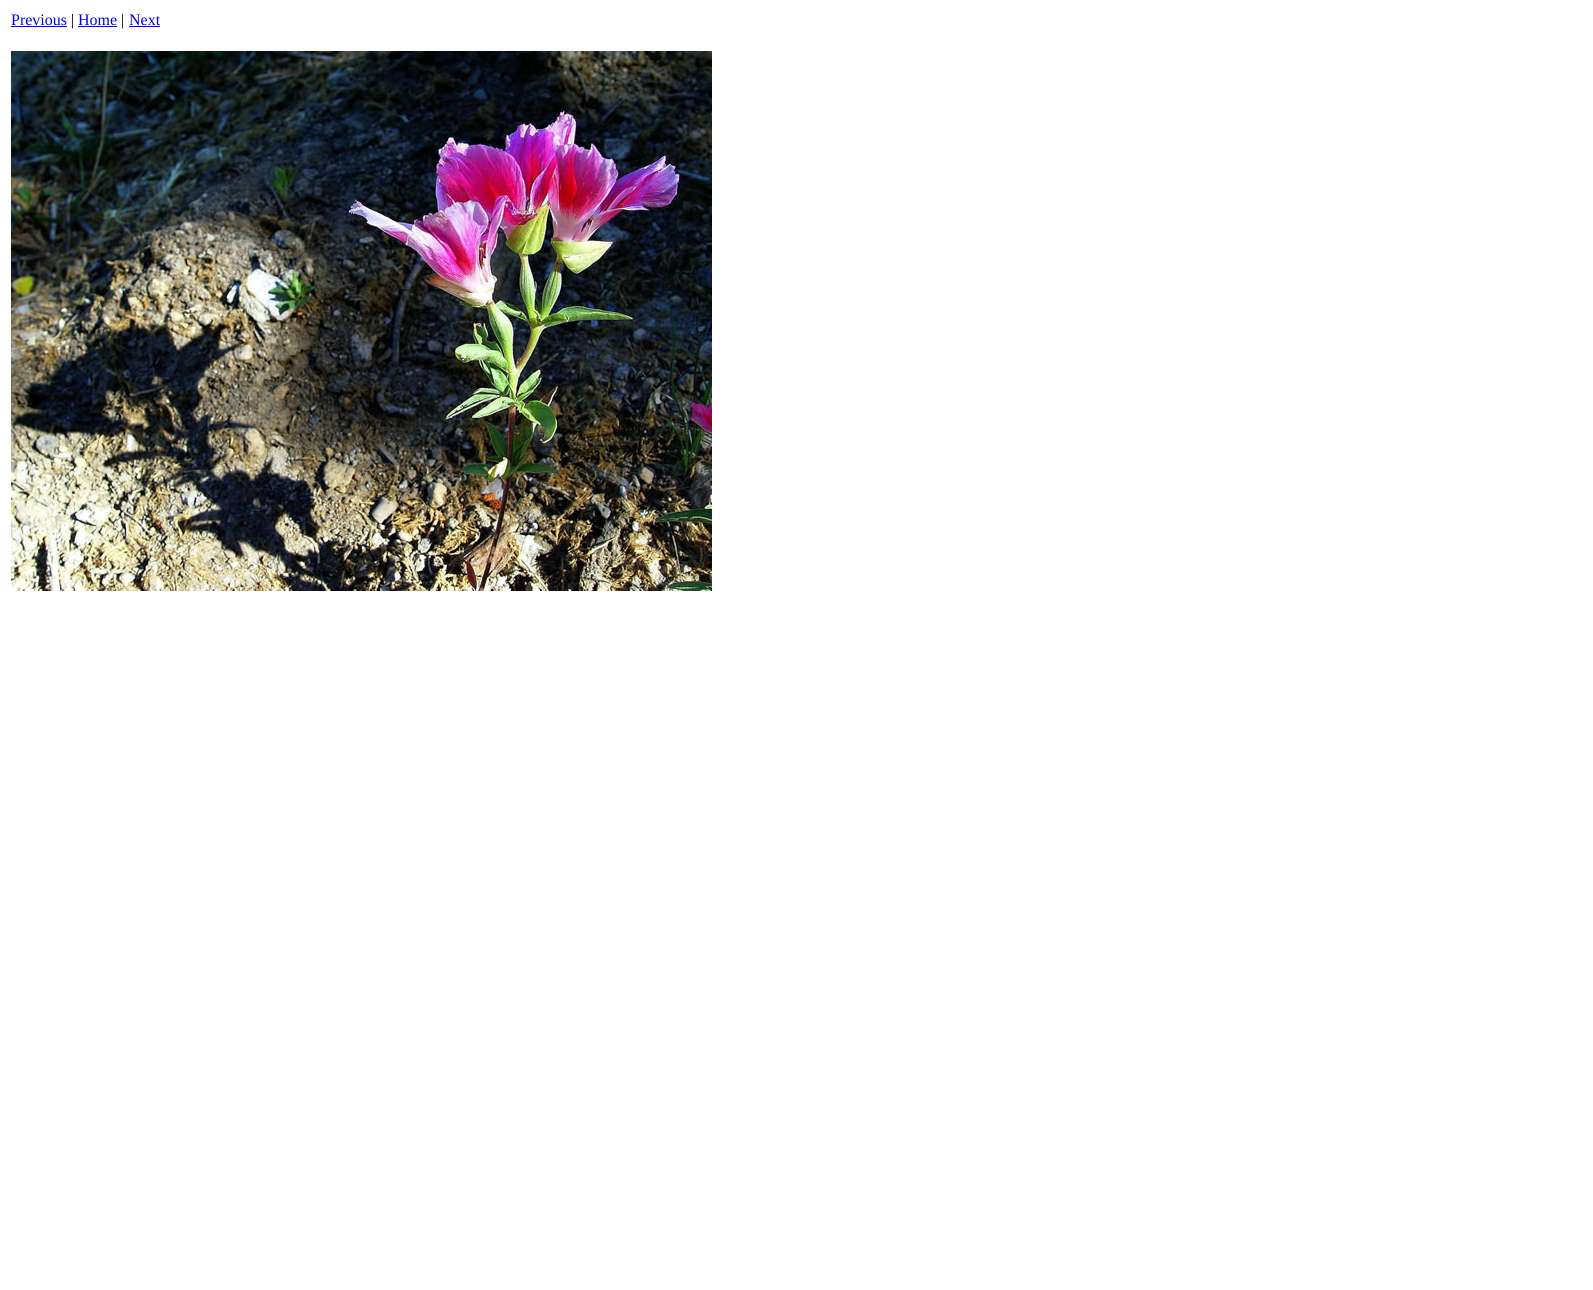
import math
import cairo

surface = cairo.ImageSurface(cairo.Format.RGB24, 1593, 1290)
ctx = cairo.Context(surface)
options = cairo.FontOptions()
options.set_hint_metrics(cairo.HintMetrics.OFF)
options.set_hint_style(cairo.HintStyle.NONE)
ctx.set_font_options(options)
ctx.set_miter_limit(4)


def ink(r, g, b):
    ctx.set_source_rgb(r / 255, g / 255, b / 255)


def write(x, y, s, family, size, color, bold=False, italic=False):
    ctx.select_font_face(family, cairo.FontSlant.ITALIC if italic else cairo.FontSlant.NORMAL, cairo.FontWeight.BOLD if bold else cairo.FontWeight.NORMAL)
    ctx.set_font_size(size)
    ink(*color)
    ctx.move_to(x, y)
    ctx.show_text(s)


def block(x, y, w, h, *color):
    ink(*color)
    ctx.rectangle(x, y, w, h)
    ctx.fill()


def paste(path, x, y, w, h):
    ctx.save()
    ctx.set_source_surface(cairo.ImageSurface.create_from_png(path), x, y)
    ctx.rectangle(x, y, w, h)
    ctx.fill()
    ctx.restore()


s1 = dict(family="Liberation Serif", size=16, color=(0, 0, 238))
s2 = dict(family="Liberation Serif", size=16, color=(0, 0, 0))

ink(255, 255, 255)
ctx.paint()
write(11, 25, "Previous", **s1)
block(11, 26, 56, 1, 0, 0, 238)
write(71, 25, "|", **s2)
write(78, 25, "Home", **s1)
block(78, 26, 39, 1, 0, 0, 238)
write(121, 25, "|", **s2)
write(129, 25, "Next", **s1)
block(129, 26, 31, 1, 0, 0, 238)
paste("pic1.png", 11, 51, 701, 540)
surface.write_to_png("screenshot.png")
